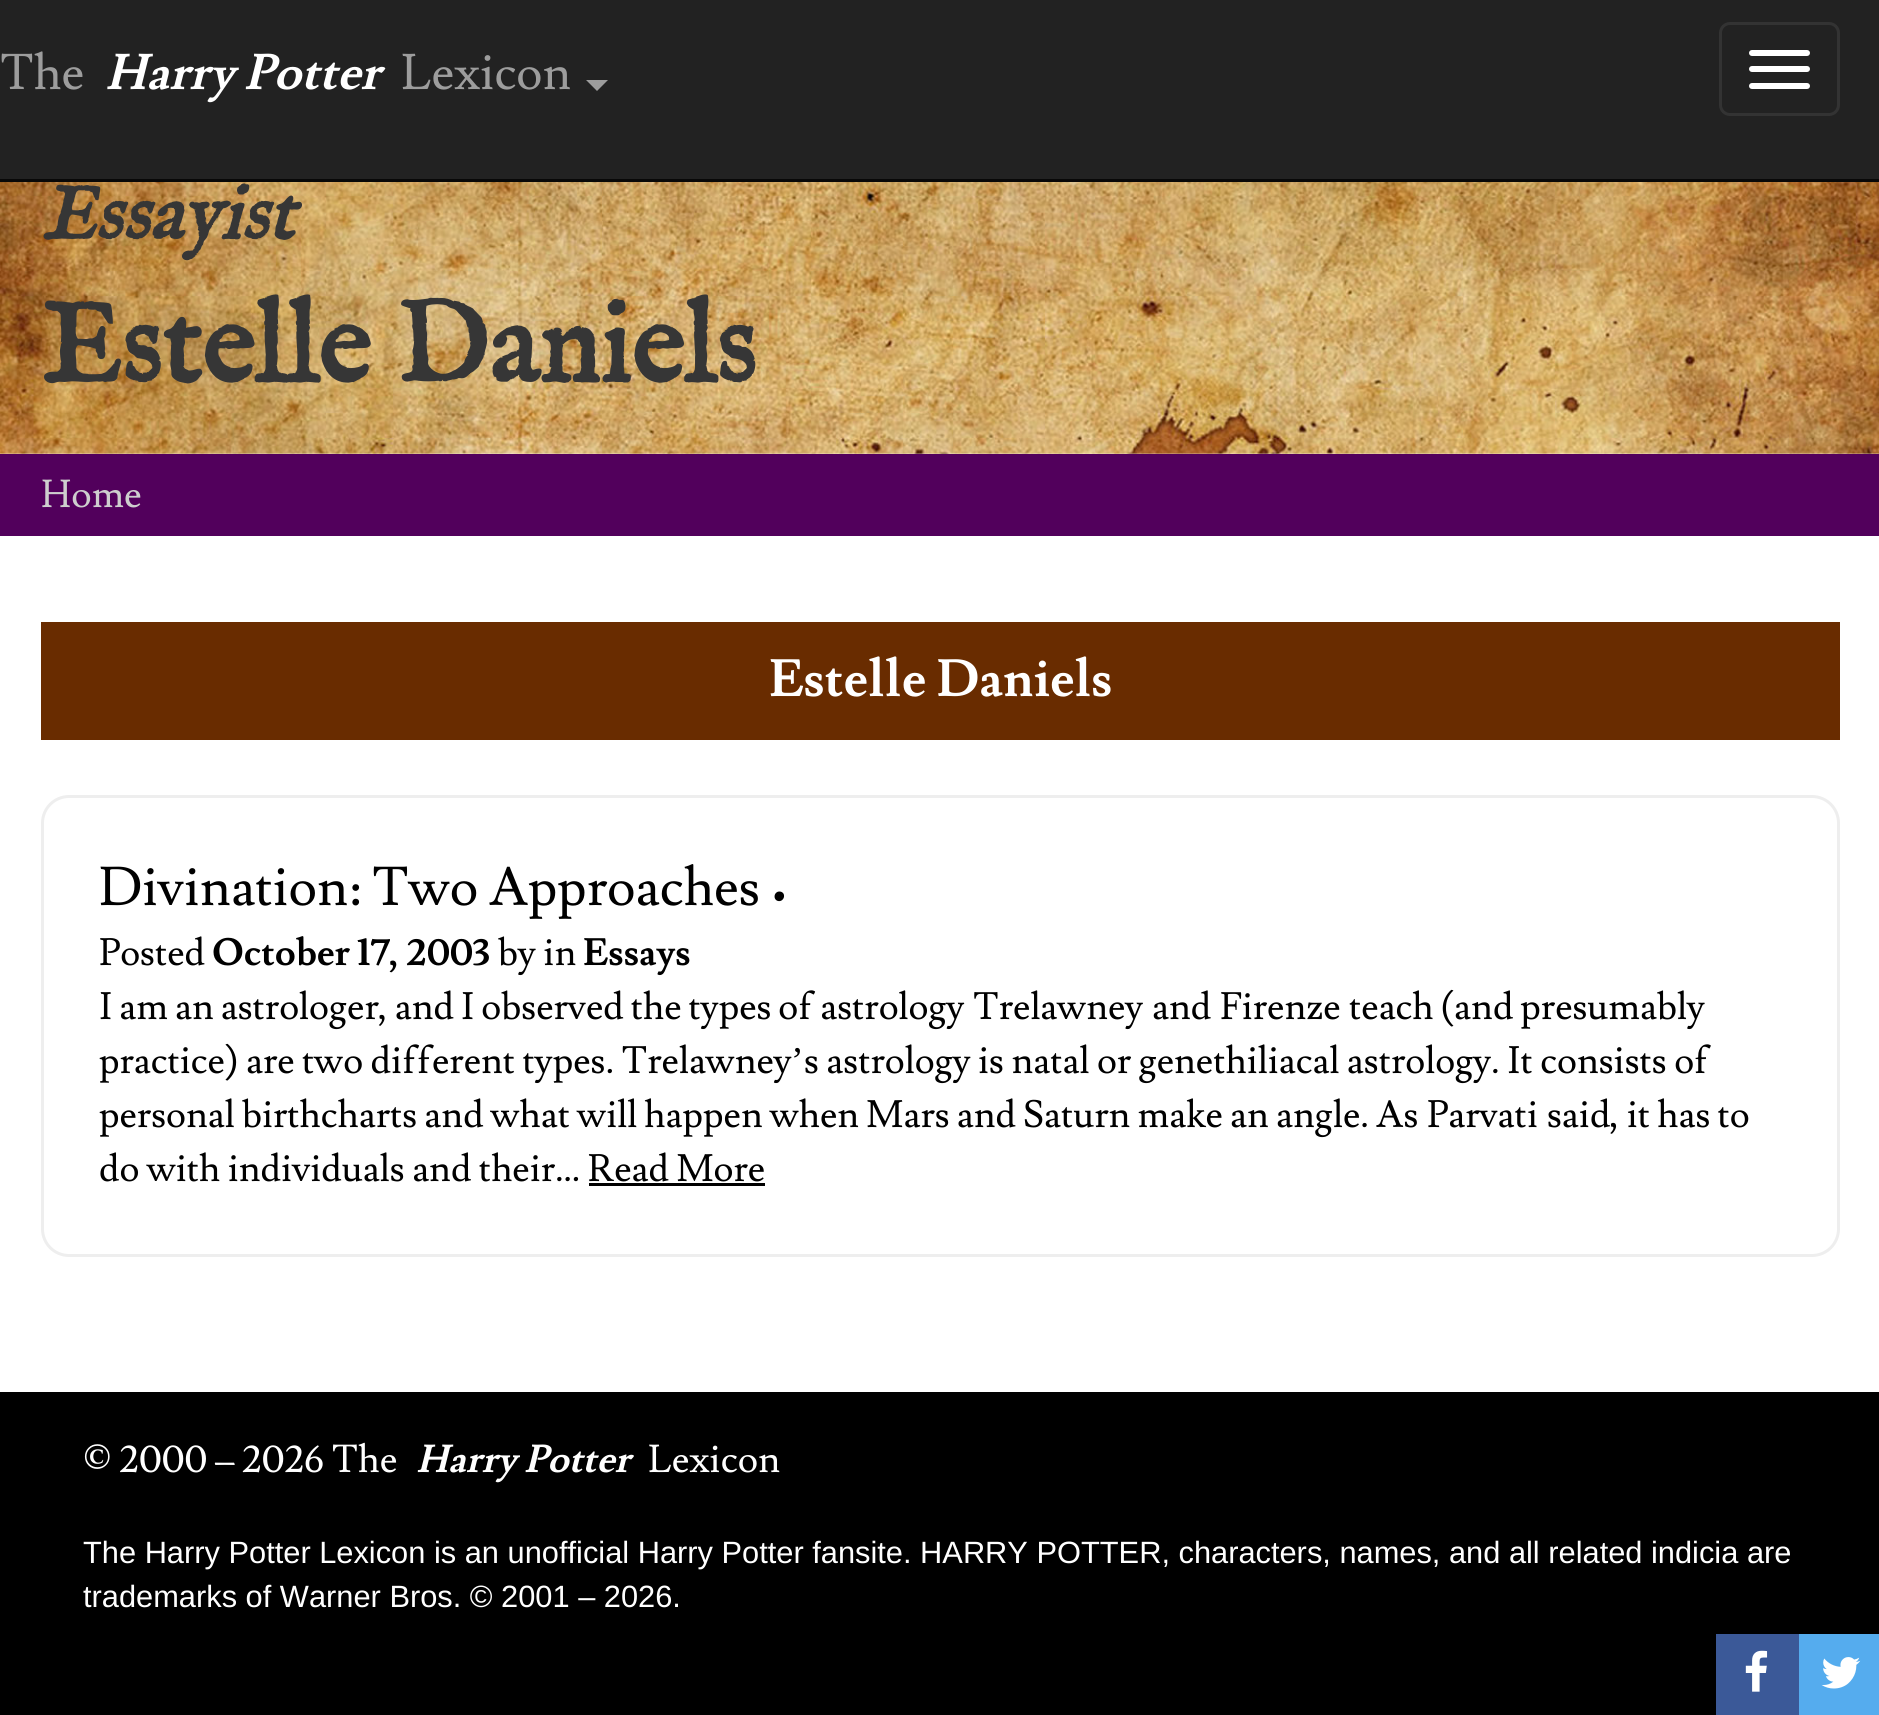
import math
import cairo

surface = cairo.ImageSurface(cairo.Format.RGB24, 1879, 1715)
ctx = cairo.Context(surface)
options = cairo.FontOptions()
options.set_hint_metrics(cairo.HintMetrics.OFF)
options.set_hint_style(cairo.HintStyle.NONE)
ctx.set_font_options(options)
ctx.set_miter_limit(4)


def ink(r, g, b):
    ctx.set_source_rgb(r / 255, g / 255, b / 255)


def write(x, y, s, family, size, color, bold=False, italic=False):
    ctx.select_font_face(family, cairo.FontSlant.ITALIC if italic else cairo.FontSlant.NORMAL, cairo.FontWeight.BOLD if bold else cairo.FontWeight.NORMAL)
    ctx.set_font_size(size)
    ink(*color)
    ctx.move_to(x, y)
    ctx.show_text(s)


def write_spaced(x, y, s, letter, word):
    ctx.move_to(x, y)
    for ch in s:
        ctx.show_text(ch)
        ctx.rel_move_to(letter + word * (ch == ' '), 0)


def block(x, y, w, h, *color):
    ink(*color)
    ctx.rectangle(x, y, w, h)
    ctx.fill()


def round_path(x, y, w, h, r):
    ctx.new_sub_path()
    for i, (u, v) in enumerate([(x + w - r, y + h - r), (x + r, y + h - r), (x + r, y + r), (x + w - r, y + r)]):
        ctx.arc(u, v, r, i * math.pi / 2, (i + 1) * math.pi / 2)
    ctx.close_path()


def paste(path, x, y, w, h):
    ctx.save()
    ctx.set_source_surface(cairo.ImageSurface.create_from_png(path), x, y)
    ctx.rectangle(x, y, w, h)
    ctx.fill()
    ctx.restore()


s1 = dict(family="Lusitana", size=49.5, color=(157, 157, 157))
s2 = dict(family="Lusitana", size=49.5, color=(255, 255, 255), bold=True, italic=True)
s3 = dict(family="IM FELL English", size=77, color=(54, 54, 54), bold=True, italic=True)
s4 = dict(family="IM FELL English", size=115.5, color=(54, 54, 54), bold=True)
s5 = dict(family="Lusitana", size=38.5, color=(206, 206, 206))
s6 = dict(family="Lusitana", size=51.75, color=(255, 255, 255), bold=True)
s7 = dict(family="Lusitana", size=53.9, color=(0, 0, 0))
s8 = dict(family="Lusitana", size=37.75, color=(0, 0, 0))
s9 = dict(family="Lusitana", size=37.75, color=(0, 0, 0), bold=True)
s10 = dict(family="Liberation Serif", size=37.75, color=(0, 0, 0))
s11 = dict(family="Lusitana", size=38.5, color=(255, 255, 255))
s12 = dict(family="Lusitana", size=38.5, color=(255, 255, 255), bold=True, italic=True)
s13 = dict(family="Liberation Sans", size=30.8, color=(255, 255, 255))

ink(255, 255, 255)
ctx.paint()
block(0, 0, 1879, 179, 34, 34, 34)
block(0, 179, 1879, 3, 8, 8, 8)
write(0, 89, "The", **s1)
write(105, 89, "Harry Potter", **s2)
write(401, 89, "Lexicon", **s1)
ctx.new_path()
ctx.move_to(586, 80)
ctx.line_to(608, 80)
ctx.line_to(597, 91)
ctx.close_path()
ctx.fill()
round_path(1720.5, 23.5, 118, 91, 9.5)
ink(51, 51, 51)
ctx.set_line_width(3)
ctx.stroke()
ink(255, 255, 255)
round_path(1749, 50, 61, 6, 3)
ctx.fill()
round_path(1749, 66, 61, 6, 3)
ctx.fill()
round_path(1749, 83, 61, 6, 3)
ctx.fill()
paste("pic1.png", 0, 182, 1879, 272)
write(41, 239, "Essayist", **s3)
write(41, 382, "Estelle Daniels", **s4)
block(0, 454, 1879, 82, 82, 0, 92)
write(41, 507, "Home", **s5)
block(41, 622, 1799, 118, 105, 44, 0)
write(769, 696, "Estelle Daniels", **s6)
round_path(42.5, 796.5, 1796, 459, 26.5)
ink(238, 238, 238)
ctx.stroke()
write(99, 905, "Divination: Two Approaches", **s7)
write(770, 905, "•", **s8)
write(99, 965, "Posted", **s8)
write(212, 965, "October 17, 2003", **s9)
write(498, 965, "by in", **s8)
write(583, 965, "Essays", **s9)
ctx.select_font_face("Lusitana")
write_spaced(99, 1019, "I am an astrologer, and I observed the types of astrology", 0, -0.5)
write(973, 1019, "Trelawney", **s8)
write(1152, 1019, "and", **s8)
write(1220, 1019, "Firenze", **s8)
write_spaced(1349, 1019, "teach (and presumably", 0, -0.5)
write(99, 1073, "practice) are two different types. Trelawney", **s8)
write(791, 1073, "’", **s10)
write(804, 1073, "s astrology is natal or genethiliacal astrology. It consists of", **s8)
write_spaced(99, 1127, "personal birthcharts and what will happen when Mars and Saturn make an angle. As", 0, -0.25)
write(1427, 1127, "Parvati", **s8)
write_spaced(1547, 1127, "said, it has to", 0, -0.25)
write(99, 1181, "do with individuals and their… Read More", **s8)
block(589, 1183, 176, 3, 0, 0, 0)
block(0, 1392, 1879, 323, 0, 0, 0)
write(83, 1472, "© 2000 – 2026 The", **s11)
write(416, 1472, "Harry Potter", **s12)
write(648, 1472, "Lexicon", **s11)
write(83, 1563, "The Harry Potter Lexicon is an unofficial Harry Potter fansite. HARRY POTTER, characters, names, and all related indicia are", **s13)
write(83, 1607, "trademarks of Warner Bros. © 2001 – 2026.", **s13)
block(1716, 1634, 83, 81, 59, 89, 152)
paste("pic2.png", 1745, 1650, 23, 42)
block(1799, 1634, 80, 81, 85, 172, 238)
paste("pic3.png", 1821, 1657, 40, 32)
surface.write_to_png("screenshot.png")
